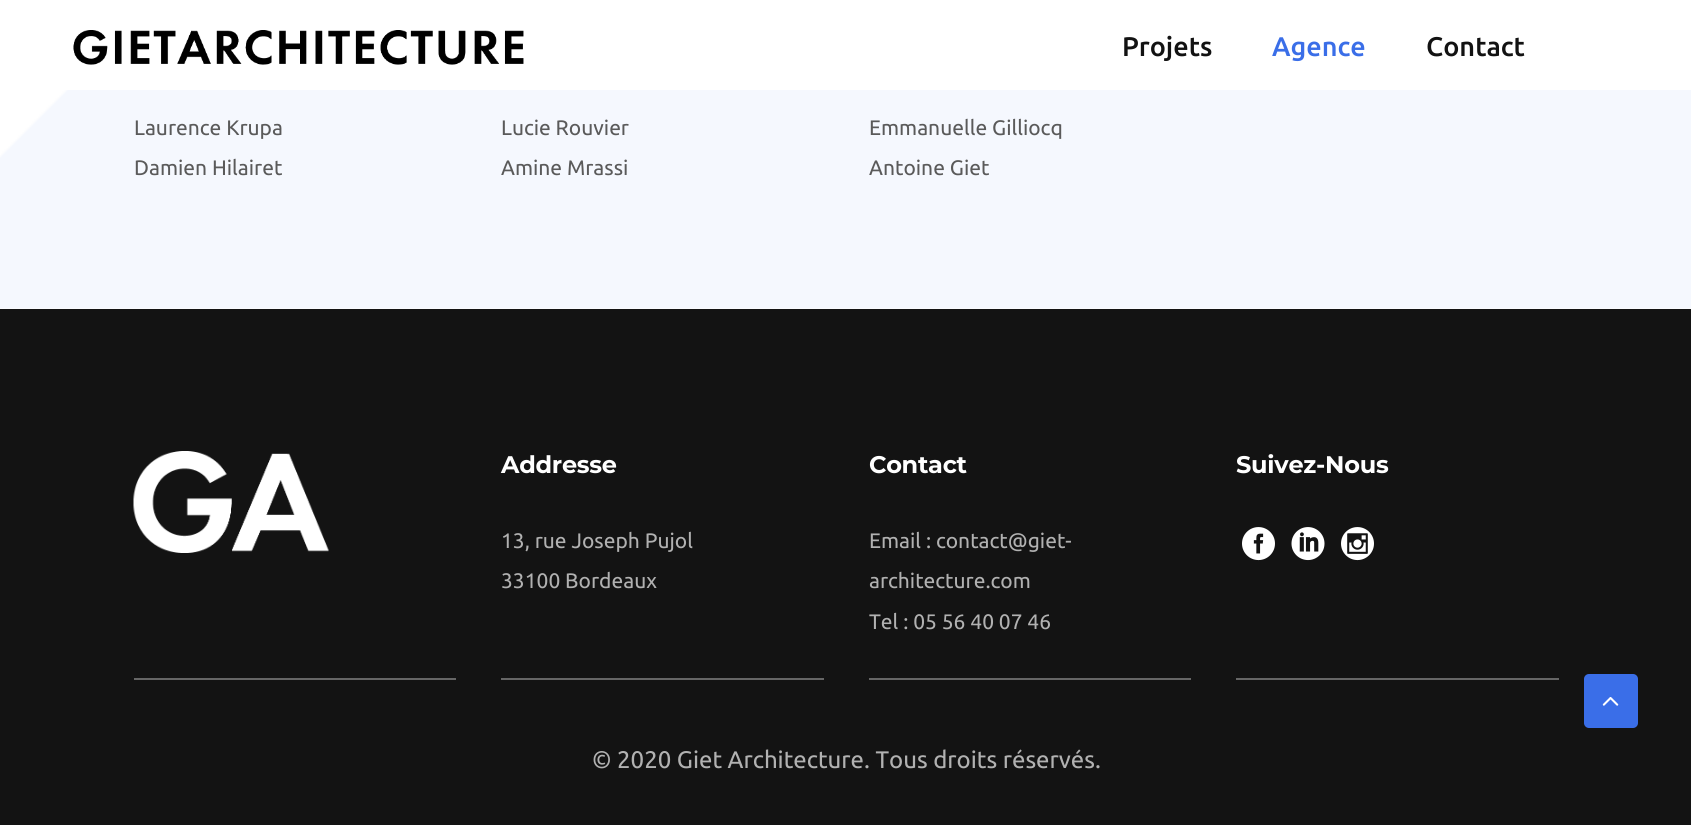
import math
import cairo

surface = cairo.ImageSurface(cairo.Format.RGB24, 1691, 825)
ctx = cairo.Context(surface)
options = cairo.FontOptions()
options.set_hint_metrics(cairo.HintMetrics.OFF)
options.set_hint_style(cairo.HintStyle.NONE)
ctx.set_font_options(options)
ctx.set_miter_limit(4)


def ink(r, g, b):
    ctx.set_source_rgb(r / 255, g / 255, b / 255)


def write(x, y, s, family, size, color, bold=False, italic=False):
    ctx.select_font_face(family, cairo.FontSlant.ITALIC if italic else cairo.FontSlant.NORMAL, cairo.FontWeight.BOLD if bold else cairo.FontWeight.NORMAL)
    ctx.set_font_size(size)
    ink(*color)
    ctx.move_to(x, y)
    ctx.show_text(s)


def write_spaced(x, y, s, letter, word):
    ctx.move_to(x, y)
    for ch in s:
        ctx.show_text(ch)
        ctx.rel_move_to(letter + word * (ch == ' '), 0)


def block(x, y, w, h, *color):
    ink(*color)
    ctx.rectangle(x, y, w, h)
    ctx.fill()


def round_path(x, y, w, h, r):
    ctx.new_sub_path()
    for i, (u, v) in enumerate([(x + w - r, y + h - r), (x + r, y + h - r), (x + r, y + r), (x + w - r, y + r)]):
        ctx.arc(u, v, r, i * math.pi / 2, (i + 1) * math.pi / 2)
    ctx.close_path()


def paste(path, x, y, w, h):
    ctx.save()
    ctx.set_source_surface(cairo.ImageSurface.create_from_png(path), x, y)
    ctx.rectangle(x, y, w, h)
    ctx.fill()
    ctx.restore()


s1 = dict(family="Ubuntu Medium", size=27, color=(18, 18, 18))
s2 = dict(family="Ubuntu Medium", size=27, color=(58, 110, 232))
s3 = dict(family="Ubuntu", size=21, color=(90, 90, 90))
s4 = dict(family="Ubuntu", size=21, color=(177, 177, 177))
s5 = dict(family="Ubuntu", size=24, color=(177, 177, 177))

ink(255, 255, 255)
ctx.paint()
paste("pic1.png", 73, 30, 451, 35)
write(1122, 56, "Projets", **s1)
write(1272, 56, "Agence", **s2)
write(1426, 56, "Contact", **s1)
paste("pic2.png", 0, 90, 1691, 219)
write(134, 135, "Laurence Krupa", **s3)
write(134, 175, "Damien Hilairet", **s3)
write(501, 135, "Lucie Rouvier", **s3)
write(501, 175, "Amine Mrassi", **s3)
write(869, 135, "Emmanuelle Gilliocq", **s3)
write(869, 175, "Antoine Giet", **s3)
block(0, 309, 1691, 516, 19, 19, 19)
block(134, 678, 322, 2, 102, 102, 102)
paste("pic3.png", 133, 451, 196, 102)
block(501, 678, 323, 2, 102, 102, 102)
ctx.select_font_face("Montserrat", cairo.FontSlant.NORMAL, cairo.FontWeight.BOLD)
ctx.set_font_size(24)
ink(255, 255, 255)
write_spaced(501, 473, "Addresse", -0.25, 0)
write(501, 548, "13, rue Joseph Pujol", **s4)
write(501, 588, "33100 Bordeaux", **s4)
block(869, 678, 322, 2, 102, 102, 102)
ctx.select_font_face("Montserrat", cairo.FontSlant.NORMAL, cairo.FontWeight.BOLD)
ctx.set_font_size(24)
ink(255, 255, 255)
write_spaced(869, 473, "Contact", -0.25, 0)
write(869, 548, "Email : contact@giet-", **s4)
write(869, 588, "architecture.com", **s4)
write(869, 629, "Tel : 05 56 40 07 46", **s4)
block(1236, 678, 323, 2, 102, 102, 102)
ctx.select_font_face("Montserrat", cairo.FontSlant.NORMAL, cairo.FontWeight.BOLD)
ctx.set_font_size(24)
ink(255, 255, 255)
write_spaced(1236, 473, "Suivez-Nous", -0.25, 0)
paste("pic4.png", 1242, 527, 33, 34)
paste("pic5.png", 1291, 527, 34, 34)
paste("pic6.png", 1341, 527, 33, 34)
write(592, 768, "© 2020 Giet Architecture. Tous droits réservés.", **s5)
ink(58, 110, 232)
round_path(1584, 674, 54, 54, 5)
ctx.fill()
paste("pic7.png", 1602, 697, 17, 9)
surface.write_to_png("screenshot.png")
